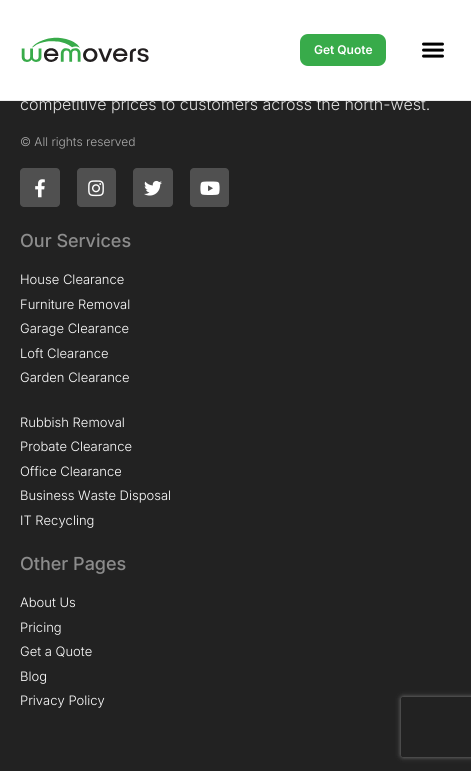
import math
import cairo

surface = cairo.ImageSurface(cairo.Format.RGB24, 471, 771)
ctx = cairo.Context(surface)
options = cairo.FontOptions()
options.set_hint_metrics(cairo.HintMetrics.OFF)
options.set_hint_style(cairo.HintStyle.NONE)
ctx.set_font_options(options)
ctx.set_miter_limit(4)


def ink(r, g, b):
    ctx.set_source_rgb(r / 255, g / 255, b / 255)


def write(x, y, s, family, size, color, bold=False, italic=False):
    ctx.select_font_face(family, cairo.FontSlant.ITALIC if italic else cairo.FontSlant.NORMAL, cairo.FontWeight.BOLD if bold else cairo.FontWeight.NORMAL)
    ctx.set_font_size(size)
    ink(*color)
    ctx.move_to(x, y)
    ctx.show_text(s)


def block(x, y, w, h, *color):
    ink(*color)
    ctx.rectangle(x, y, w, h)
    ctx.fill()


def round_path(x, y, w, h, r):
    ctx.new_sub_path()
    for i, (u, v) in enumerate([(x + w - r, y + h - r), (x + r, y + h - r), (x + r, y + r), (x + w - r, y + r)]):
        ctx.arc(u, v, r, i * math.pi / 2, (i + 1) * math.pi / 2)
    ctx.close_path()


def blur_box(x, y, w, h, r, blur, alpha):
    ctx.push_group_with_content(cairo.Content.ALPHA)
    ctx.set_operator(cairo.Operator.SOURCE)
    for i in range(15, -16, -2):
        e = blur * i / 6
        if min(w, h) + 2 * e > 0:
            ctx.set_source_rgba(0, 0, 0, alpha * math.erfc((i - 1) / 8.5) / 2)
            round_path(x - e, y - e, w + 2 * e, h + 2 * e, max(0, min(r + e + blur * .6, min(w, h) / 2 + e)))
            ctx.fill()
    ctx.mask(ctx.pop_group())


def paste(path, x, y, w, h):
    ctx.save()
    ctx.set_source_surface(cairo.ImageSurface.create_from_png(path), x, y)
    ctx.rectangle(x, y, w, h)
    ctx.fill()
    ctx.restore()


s1 = dict(family="Inter Light", size=16, color=(226, 226, 226))
s2 = dict(family="Inter SemiBold", size=12, color=(255, 255, 255))
s3 = dict(family="Inter Light", size=12, color=(173, 173, 173))
s4 = dict(family="Inter Medium", size=18, color=(140, 140, 140))
s5 = dict(family="Inter Light", size=13, color=(255, 255, 255))

ink(34, 34, 34)
ctx.paint()
write(20, 110, "competitive prices to customers across the north-west.", **s1)
block(0, 0, 471, 100, 255, 255, 255)
block(0, 100, 471, 1, 237, 237, 237)
paste("pic1.png", 21, 37, 128, 25)
ink(56, 171, 74)
round_path(300, 34, 86, 32, 8)
ctx.fill()
write(314, 54, "Get Quote", **s2)
paste("pic2.png", 422, 42, 22, 16)
write(20, 146, "© All rights reserved", **s3)
ink(80, 80, 80)
round_path(20, 168, 40, 39, 4)
ctx.fill()
paste("pic3.png", 35, 179, 10, 19)
round_path(77, 168, 39, 39, 4)
ctx.fill()
paste("pic4.png", 88, 180, 16, 17)
round_path(133, 168, 40, 39, 4)
ctx.fill()
paste("pic5.png", 144, 180, 18, 16)
round_path(190, 168, 39, 39, 4)
ctx.fill()
paste("pic6.png", 200, 181, 20, 14)
write(20, 247, "Our Services", **s4)
write(20, 284, "House Clearance", **s5)
write(20, 309, "Furniture Removal", **s5)
write(20, 333, "Garage Clearance", **s5)
write(20, 358, "Loft Clearance", **s5)
write(20, 382, "Garden Clearance", **s5)
write(20, 427, "Rubbish Removal", **s5)
write(20, 451, "Probate Clearance", **s5)
write(20, 476, "Office Clearance", **s5)
write(20, 500, "Business Waste Disposal", **s5)
write(20, 525, "IT Recycling", **s5)
write(20, 570, "Other Pages", **s4)
write(20, 607, "About Us", **s5)
write(20, 632, "Pricing", **s5)
write(20, 656, "Get a Quote", **s5)
write(20, 681, "Blog", **s5)
write(20, 705, "Privacy Policy", **s5)
ctx.save()
ctx.set_fill_rule(cairo.FillRule.EVEN_ODD)
ctx.new_path()
ctx.move_to(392, 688)
ctx.line_to(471, 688)
ctx.line_to(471, 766)
ctx.line_to(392, 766)
ctx.close_path()
ctx.move_to(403, 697)
ctx.line_to(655, 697)
ctx.curve_to(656, 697, 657, 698, 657, 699)
ctx.line_to(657, 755)
ctx.curve_to(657, 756, 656, 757, 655, 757)
ctx.line_to(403, 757)
ctx.curve_to(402, 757, 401, 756, 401, 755)
ctx.line_to(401, 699)
ctx.curve_to(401, 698, 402, 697, 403, 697)
ctx.close_path()
ctx.clip()
ink(128, 128, 128)
blur_box(401, 697, 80, 60, 2, 2.5, 1)
ctx.restore()
surface.write_to_png("screenshot.png")
